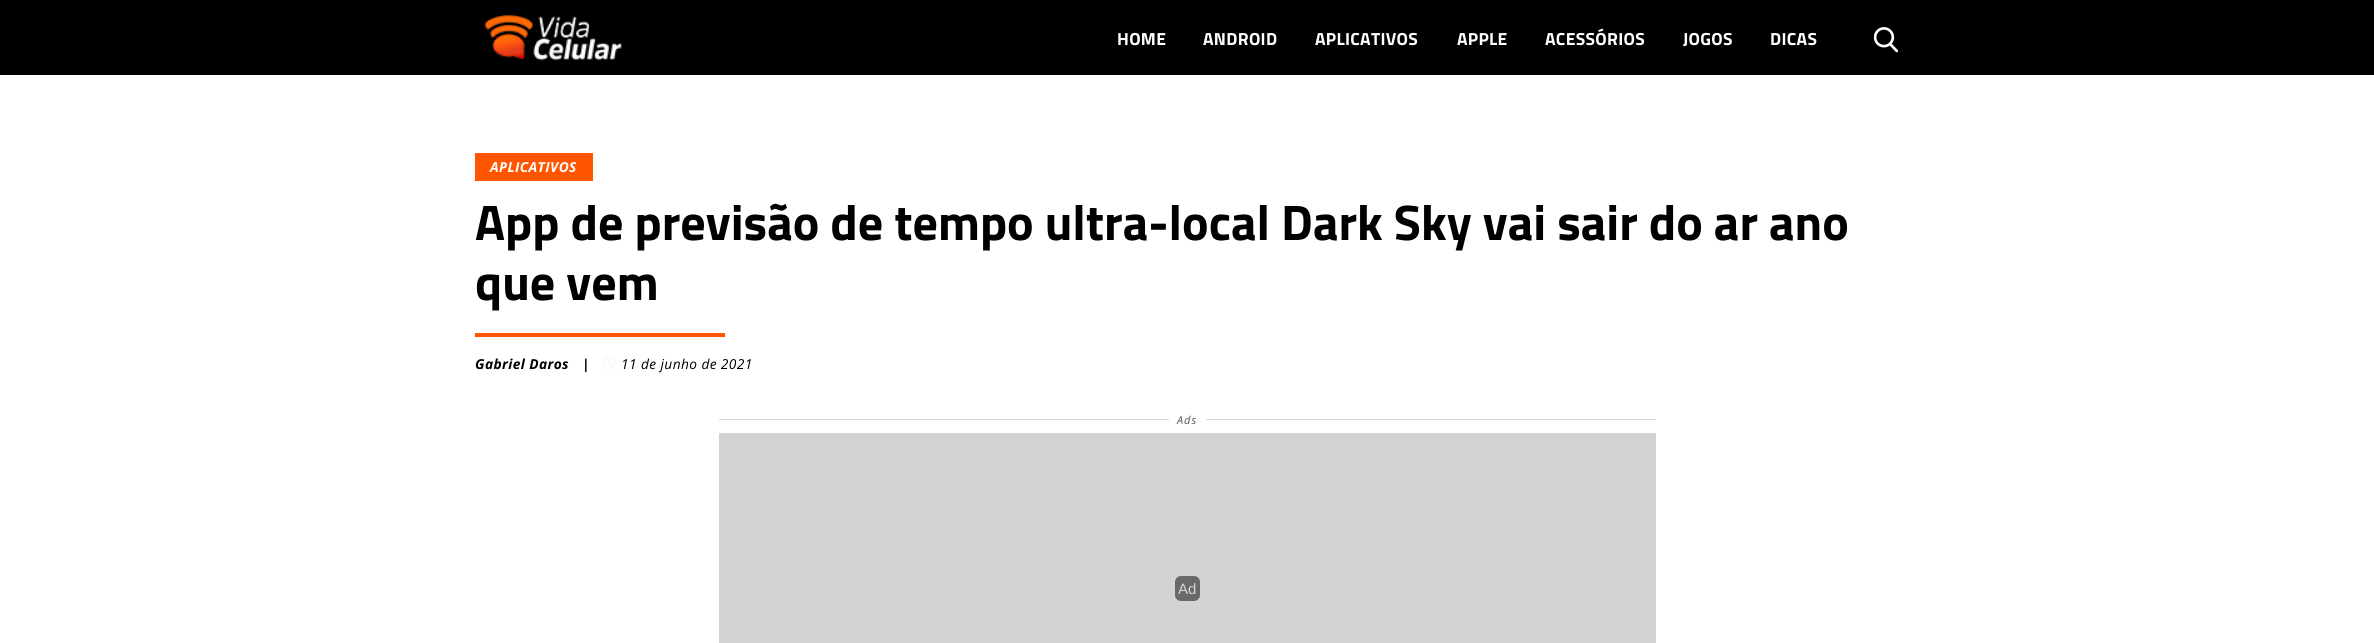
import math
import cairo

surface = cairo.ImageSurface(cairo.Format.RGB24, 2374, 643)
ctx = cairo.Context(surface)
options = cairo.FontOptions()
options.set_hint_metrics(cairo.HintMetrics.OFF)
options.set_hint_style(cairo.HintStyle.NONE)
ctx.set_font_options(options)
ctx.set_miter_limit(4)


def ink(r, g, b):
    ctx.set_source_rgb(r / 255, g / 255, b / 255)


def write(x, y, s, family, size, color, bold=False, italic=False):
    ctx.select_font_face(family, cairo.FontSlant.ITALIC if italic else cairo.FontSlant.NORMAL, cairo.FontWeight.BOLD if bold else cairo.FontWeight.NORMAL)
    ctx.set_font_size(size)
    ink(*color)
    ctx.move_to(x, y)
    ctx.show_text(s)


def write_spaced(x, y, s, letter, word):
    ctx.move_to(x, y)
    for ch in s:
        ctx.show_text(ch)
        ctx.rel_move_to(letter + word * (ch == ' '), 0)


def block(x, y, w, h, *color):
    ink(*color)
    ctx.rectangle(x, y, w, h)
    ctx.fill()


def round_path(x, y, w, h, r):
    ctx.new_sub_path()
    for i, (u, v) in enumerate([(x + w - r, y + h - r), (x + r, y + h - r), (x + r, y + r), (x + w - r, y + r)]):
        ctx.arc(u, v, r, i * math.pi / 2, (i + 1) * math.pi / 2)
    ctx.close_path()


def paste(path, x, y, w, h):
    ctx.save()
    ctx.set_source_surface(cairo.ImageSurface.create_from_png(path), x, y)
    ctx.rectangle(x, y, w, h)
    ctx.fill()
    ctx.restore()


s1 = dict(family="Titillium Web", size=50, color=(0, 0, 0), bold=True)
s2 = dict(family="Liberation Sans", size=15, color=(211, 211, 211))

ink(255, 255, 255)
ctx.paint()
block(0, 0, 2374, 75, 0, 0, 0)
paste("pic1.png", 484, 14, 138, 47)
ctx.select_font_face("Titillium Web", cairo.FontSlant.NORMAL, cairo.FontWeight.BOLD)
ctx.set_font_size(17.5)
ink(255, 255, 255)
write_spaced(1117, 45, "HOME", 0.3, 0)
write_spaced(1203, 45, "ANDROID", 0.3, 0)
write_spaced(1315, 45, "APLICATIVOS", 0.3, 0)
write_spaced(1457, 45, "APPLE", 0.3, 0)
write_spaced(1545, 45, "ACESSÓRIOS", 0.3, 0)
write_spaced(1683, 45, "JOGOS", 0.3, 0)
write_spaced(1770, 45, "DICAS", 0.3, 0)
paste("pic2.png", 1874, 27, 25, 26)
block(475, 153, 118, 28, 255, 85, 0)
ctx.select_font_face("Open Sans", cairo.FontSlant.ITALIC, cairo.FontWeight.BOLD)
ctx.set_font_size(13.75)
ink(255, 255, 255)
write_spaced(490, 172, "APLICATIVOS", 0.4, 0)
write(475, 240, "App de previsão de tempo ultra-local Dark Sky vai sair do ar ano", **s1)
write(475, 300, "que vem", **s1)
block(475, 333, 250, 4, 255, 85, 0)
ctx.select_font_face("Open Sans", cairo.FontSlant.ITALIC, cairo.FontWeight.BOLD)
ctx.set_font_size(13.75)
ink(0, 0, 0)
write_spaced(475, 369, "Gabriel Daros", 0.4, 0)
write_spaced(582, 369, "|", 0.4, 0)
paste("pic3.png", 603, 356, 12, 13)
ctx.select_font_face("Open Sans", cairo.FontSlant.ITALIC)
write_spaced(621, 369, "11 de junho de 2021", 0.4, 0)
block(719, 419, 450, 1, 217, 217, 217)
ctx.set_font_size(11)
ink(85, 85, 85)
write_spaced(1177, 424, "Ads", 1, 0)
block(1206, 419, 450, 1, 217, 217, 217)
block(719, 433, 937, 210, 211, 211, 211)
ink(105, 105, 105)
round_path(1175, 576, 25, 25, 6)
ctx.fill()
write(1178, 594, "Ad", **s2)
surface.write_to_png("screenshot.png")
